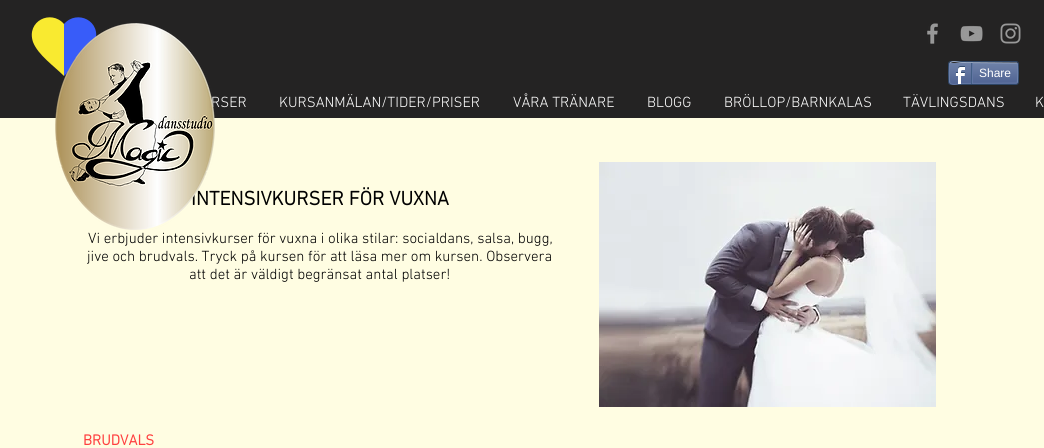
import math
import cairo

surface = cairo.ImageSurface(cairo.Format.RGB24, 1044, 448)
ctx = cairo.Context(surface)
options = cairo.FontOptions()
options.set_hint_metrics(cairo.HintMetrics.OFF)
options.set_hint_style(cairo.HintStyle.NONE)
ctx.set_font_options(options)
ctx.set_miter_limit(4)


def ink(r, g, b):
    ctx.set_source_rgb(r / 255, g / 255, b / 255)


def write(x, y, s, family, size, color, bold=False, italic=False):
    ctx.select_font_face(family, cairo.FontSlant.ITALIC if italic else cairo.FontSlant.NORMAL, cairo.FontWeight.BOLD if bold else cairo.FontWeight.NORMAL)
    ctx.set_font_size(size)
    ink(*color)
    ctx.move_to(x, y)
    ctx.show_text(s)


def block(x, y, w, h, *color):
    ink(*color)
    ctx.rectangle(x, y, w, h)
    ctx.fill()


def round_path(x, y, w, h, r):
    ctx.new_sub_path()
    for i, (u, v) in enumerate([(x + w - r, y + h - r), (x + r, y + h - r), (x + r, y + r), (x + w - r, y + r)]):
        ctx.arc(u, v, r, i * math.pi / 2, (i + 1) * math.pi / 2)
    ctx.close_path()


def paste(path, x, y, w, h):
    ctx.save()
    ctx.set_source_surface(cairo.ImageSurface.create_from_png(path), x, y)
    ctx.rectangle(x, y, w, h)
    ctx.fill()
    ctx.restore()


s1 = dict(family="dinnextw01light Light", size=15, color=(255, 255, 255))
s2 = dict(family="dinnextw01light", size=20, color=(0, 0, 0), bold=True)
s3 = dict(family="Liberation Sans", size=12, color=(255, 255, 255))
s4 = dict(family="dinnextw01light Light", size=15, color=(0, 0, 0))
s5 = dict(family="dinnextw01light", size=15, color=(255, 64, 64), bold=True)

ink(255, 253, 226)
ctx.paint()
block(0, 0, 1044, 118, 36, 35, 35)
ink(249, 234, 48)
ctx.new_path()
ctx.move_to(64, 24)
ctx.curve_to(51, 9, 26, 21, 33, 42)
ctx.curve_to(38, 55, 54, 66, 64, 76)
ctx.close_path()
ctx.fill()
ink(56, 92, 249)
ctx.new_path()
ctx.move_to(64, 24)
ctx.curve_to(77, 9, 102, 21, 95, 42)
ctx.curve_to(90, 55, 74, 66, 64, 76)
ctx.close_path()
ctx.fill()
write(211, 107, "RSER", **s1)
write(191, 205, "INTENSIVKURSER FÖR VUXNA", **s2)
paste("pic1.png", 55, 23, 160, 207)
paste("pic2.png", 927, 23, 11, 21)
paste("pic3.png", 960, 25, 23, 17)
paste("pic4.png", 1000, 23, 21, 21)
round_path(948.5, 61.5, 70, 23, 2.5)
ink(45, 69, 101)
ctx.set_line_width(1)
ctx.stroke()
paste("pic5.png", 949, 63, 69, 21)
ctx.new_path()
ctx.move_to(950, 63)
ctx.curve_to(953, 60, 958, 62.5, 962, 62.5)
ctx.line_to(1017, 63)
ink(154, 171, 198)
ctx.stroke()
ctx.new_path()
ctx.move_to(1017, 63)
ctx.curve_to(1018, 63.5, 1018, 82.5, 1017, 83)
ink(111, 131, 173)
ctx.stroke()
ctx.new_path()
ctx.move_to(1017, 83)
ctx.line_to(962, 83.5)
ctx.curve_to(958, 83.5, 953, 86, 950, 83)
ink(97, 118, 163)
ctx.stroke()
ctx.new_path()
ctx.move_to(950, 83)
ctx.curve_to(949, 82.5, 949, 63.5, 950, 63)
ink(111, 131, 173)
ctx.stroke()
paste("pic6.png", 955, 66, 10, 18)
block(971, 63, 1, 21, 66, 94, 133)
write(979, 77, "Share", **s3)
block(972, 63, 1, 20, 97, 118, 163)
write(279, 107, "KURSANMÄLAN/TIDER/PRISER", **s1)
write(513, 107, "VÅRA TRÄNARE", **s1)
write(647, 107, "BLOGG", **s1)
write(724, 107, "BRÖLLOP/BARNKALAS", **s1)
write(903, 107, "TÄVLINGSDANS", **s1)
write(1035, 107, "K", **s1)
write(88, 243, "Vi erbjuder intensivkurser för vuxna i olika stilar: socialdans, salsa, bugg,", **s4)
write(87, 261, "jive och brudvals. Tryck på kursen för att läsa mer om kursen. Observera", **s4)
write(189, 279, "att det är väldigt begränsat antal platser!", **s4)
paste("pic7.png", 599, 162, 337, 245)
write(83, 445, "BRUDVALS", **s5)
surface.write_to_png("screenshot.png")
